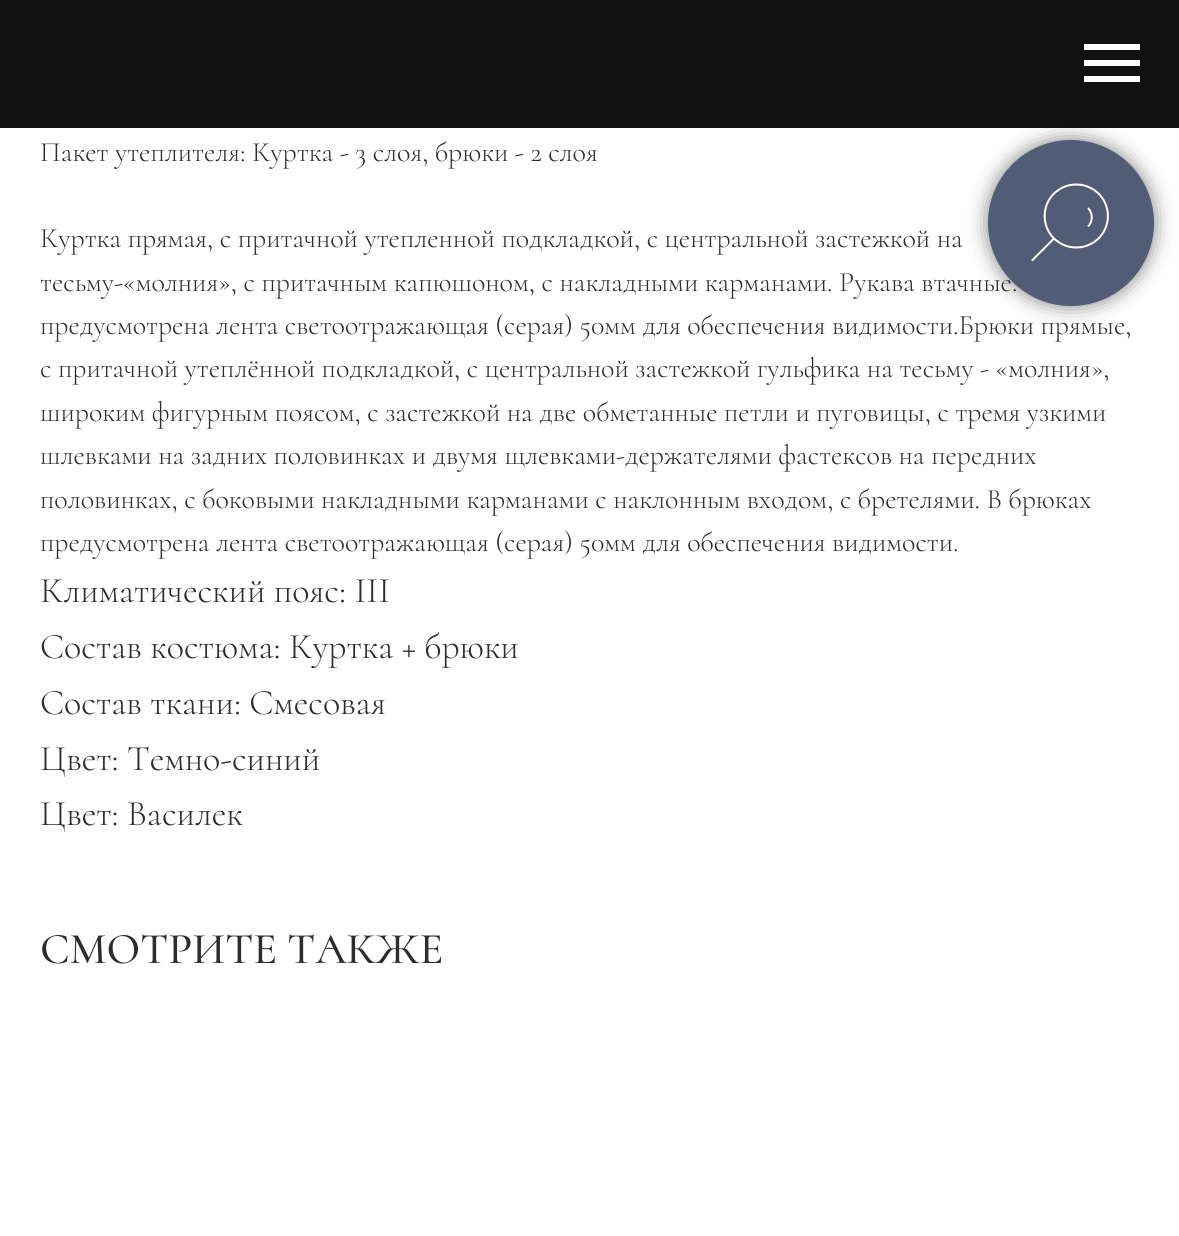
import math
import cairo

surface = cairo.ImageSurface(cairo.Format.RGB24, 1179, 1236)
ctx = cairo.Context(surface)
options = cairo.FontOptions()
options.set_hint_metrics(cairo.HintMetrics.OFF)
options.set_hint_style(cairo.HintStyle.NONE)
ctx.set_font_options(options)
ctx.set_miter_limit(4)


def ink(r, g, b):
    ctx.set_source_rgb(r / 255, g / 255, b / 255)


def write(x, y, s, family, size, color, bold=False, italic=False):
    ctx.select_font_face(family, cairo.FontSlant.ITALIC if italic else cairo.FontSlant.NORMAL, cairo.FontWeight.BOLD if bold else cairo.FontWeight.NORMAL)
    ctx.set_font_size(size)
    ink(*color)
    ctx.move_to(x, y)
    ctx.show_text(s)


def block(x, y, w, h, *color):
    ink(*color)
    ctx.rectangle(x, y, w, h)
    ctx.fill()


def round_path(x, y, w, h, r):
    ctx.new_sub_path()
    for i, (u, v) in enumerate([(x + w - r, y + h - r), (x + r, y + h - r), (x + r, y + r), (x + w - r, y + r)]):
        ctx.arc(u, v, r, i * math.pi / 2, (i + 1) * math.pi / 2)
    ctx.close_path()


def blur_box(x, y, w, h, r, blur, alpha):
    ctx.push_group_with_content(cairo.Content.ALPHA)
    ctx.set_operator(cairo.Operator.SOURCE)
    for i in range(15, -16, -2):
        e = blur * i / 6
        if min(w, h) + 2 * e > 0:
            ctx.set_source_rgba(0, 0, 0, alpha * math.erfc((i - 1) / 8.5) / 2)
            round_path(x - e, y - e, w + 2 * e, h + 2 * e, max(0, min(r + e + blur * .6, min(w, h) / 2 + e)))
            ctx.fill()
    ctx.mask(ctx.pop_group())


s1 = dict(family="Cormorant Light", size=28, color=(44, 44, 46))
s2 = dict(family="Cormorant Light", size=36, color=(44, 44, 46))
s3 = dict(family="Cormorant Medium", size=44, color=(44, 44, 46))

ink(255, 255, 255)
ctx.paint()
block(0, 0, 1179, 128, 17, 17, 17)
block(1084, 44, 56, 6, 255, 255, 255)
block(1084, 60, 56, 6, 255, 255, 255)
block(1084, 76, 56, 6, 255, 255, 255)
ink(0, 0, 0)
blur_box(988, 140, 166, 166, 83, 10, 0.5)
write(40, 291, "тесьму-«молния», с притачным капюшоном, с накладными карманами. Рукава втачные.", **s1)
ink(82, 92, 118)
ctx.new_path()
ctx.arc(1071, 223, 82, 0, 2 * math.pi)
ctx.fill_preserve()
ctx.stroke()
ctx.new_path()
ctx.move_to(1053, 239.5)
ctx.line_to(1032.5, 260)
ink(255, 254, 244)
ctx.set_line_cap(cairo.LineCap.SQUARE)
ctx.stroke()
ctx.new_path()
ctx.move_to(1098.5, 193.5)
ctx.curve_to(1111, 206, 1111, 226, 1098.5, 238.5)
ctx.curve_to(1086, 250.5, 1066.5, 250.5, 1054, 238.5)
ctx.curve_to(1041.5, 226, 1041.5, 206, 1054, 193.5)
ctx.curve_to(1066.5, 181.5, 1086, 181.5, 1098.5, 193.5)
ctx.close_path()
ctx.set_line_cap(cairo.LineCap.BUTT)
ctx.stroke()
ctx.new_path()
ctx.move_to(1088, 208)
ctx.curve_to(1093, 213, 1093, 221.5, 1088, 226.5)
ctx.stroke()
write(40, 161, "Пакет утеплителя: Куртка - 3 слоя, брюки - 2 слоя", **s1)
write(40, 247, "Куртка прямая, с притачной утепленной подкладкой, с центральной застежкой на", **s1)
write(40, 334, "предусмотрена лента светоотражающая (серая) 50мм для обеспечения видимости.Брюки прямые,", **s1)
write(40, 377, "с притачной утеплённой подкладкой, с центральной застежкой гульфика на тесьму - «молния»,", **s1)
write(40, 421, "широким фигурным поясом, с застежкой на две обметанные петли и пуговицы, с тремя узкими", **s1)
write(40, 464, "шлевками на задних половинках и двумя щлевками-держателями фастексов на передних", **s1)
write(40, 508, "половинках, с боковыми накладными карманами с наклонным входом, с бретелями. В брюках", **s1)
write(40, 551, "предусмотрена лента светоотражающая (серая) 50мм для обеспечения видимости.", **s1)
write(40, 602, "Климатический пояс: III", **s2)
write(40, 658, "Состав костюма: Куртка + брюки", **s2)
write(40, 714, "Состав ткани: Смесовая", **s2)
write(40, 770, "Цвет: Темно-синий", **s2)
write(40, 825, "Цвет: Василек", **s2)
write(40, 963, "СМОТРИТЕ ТАКЖЕ", **s3)
surface.write_to_png("screenshot.png")
